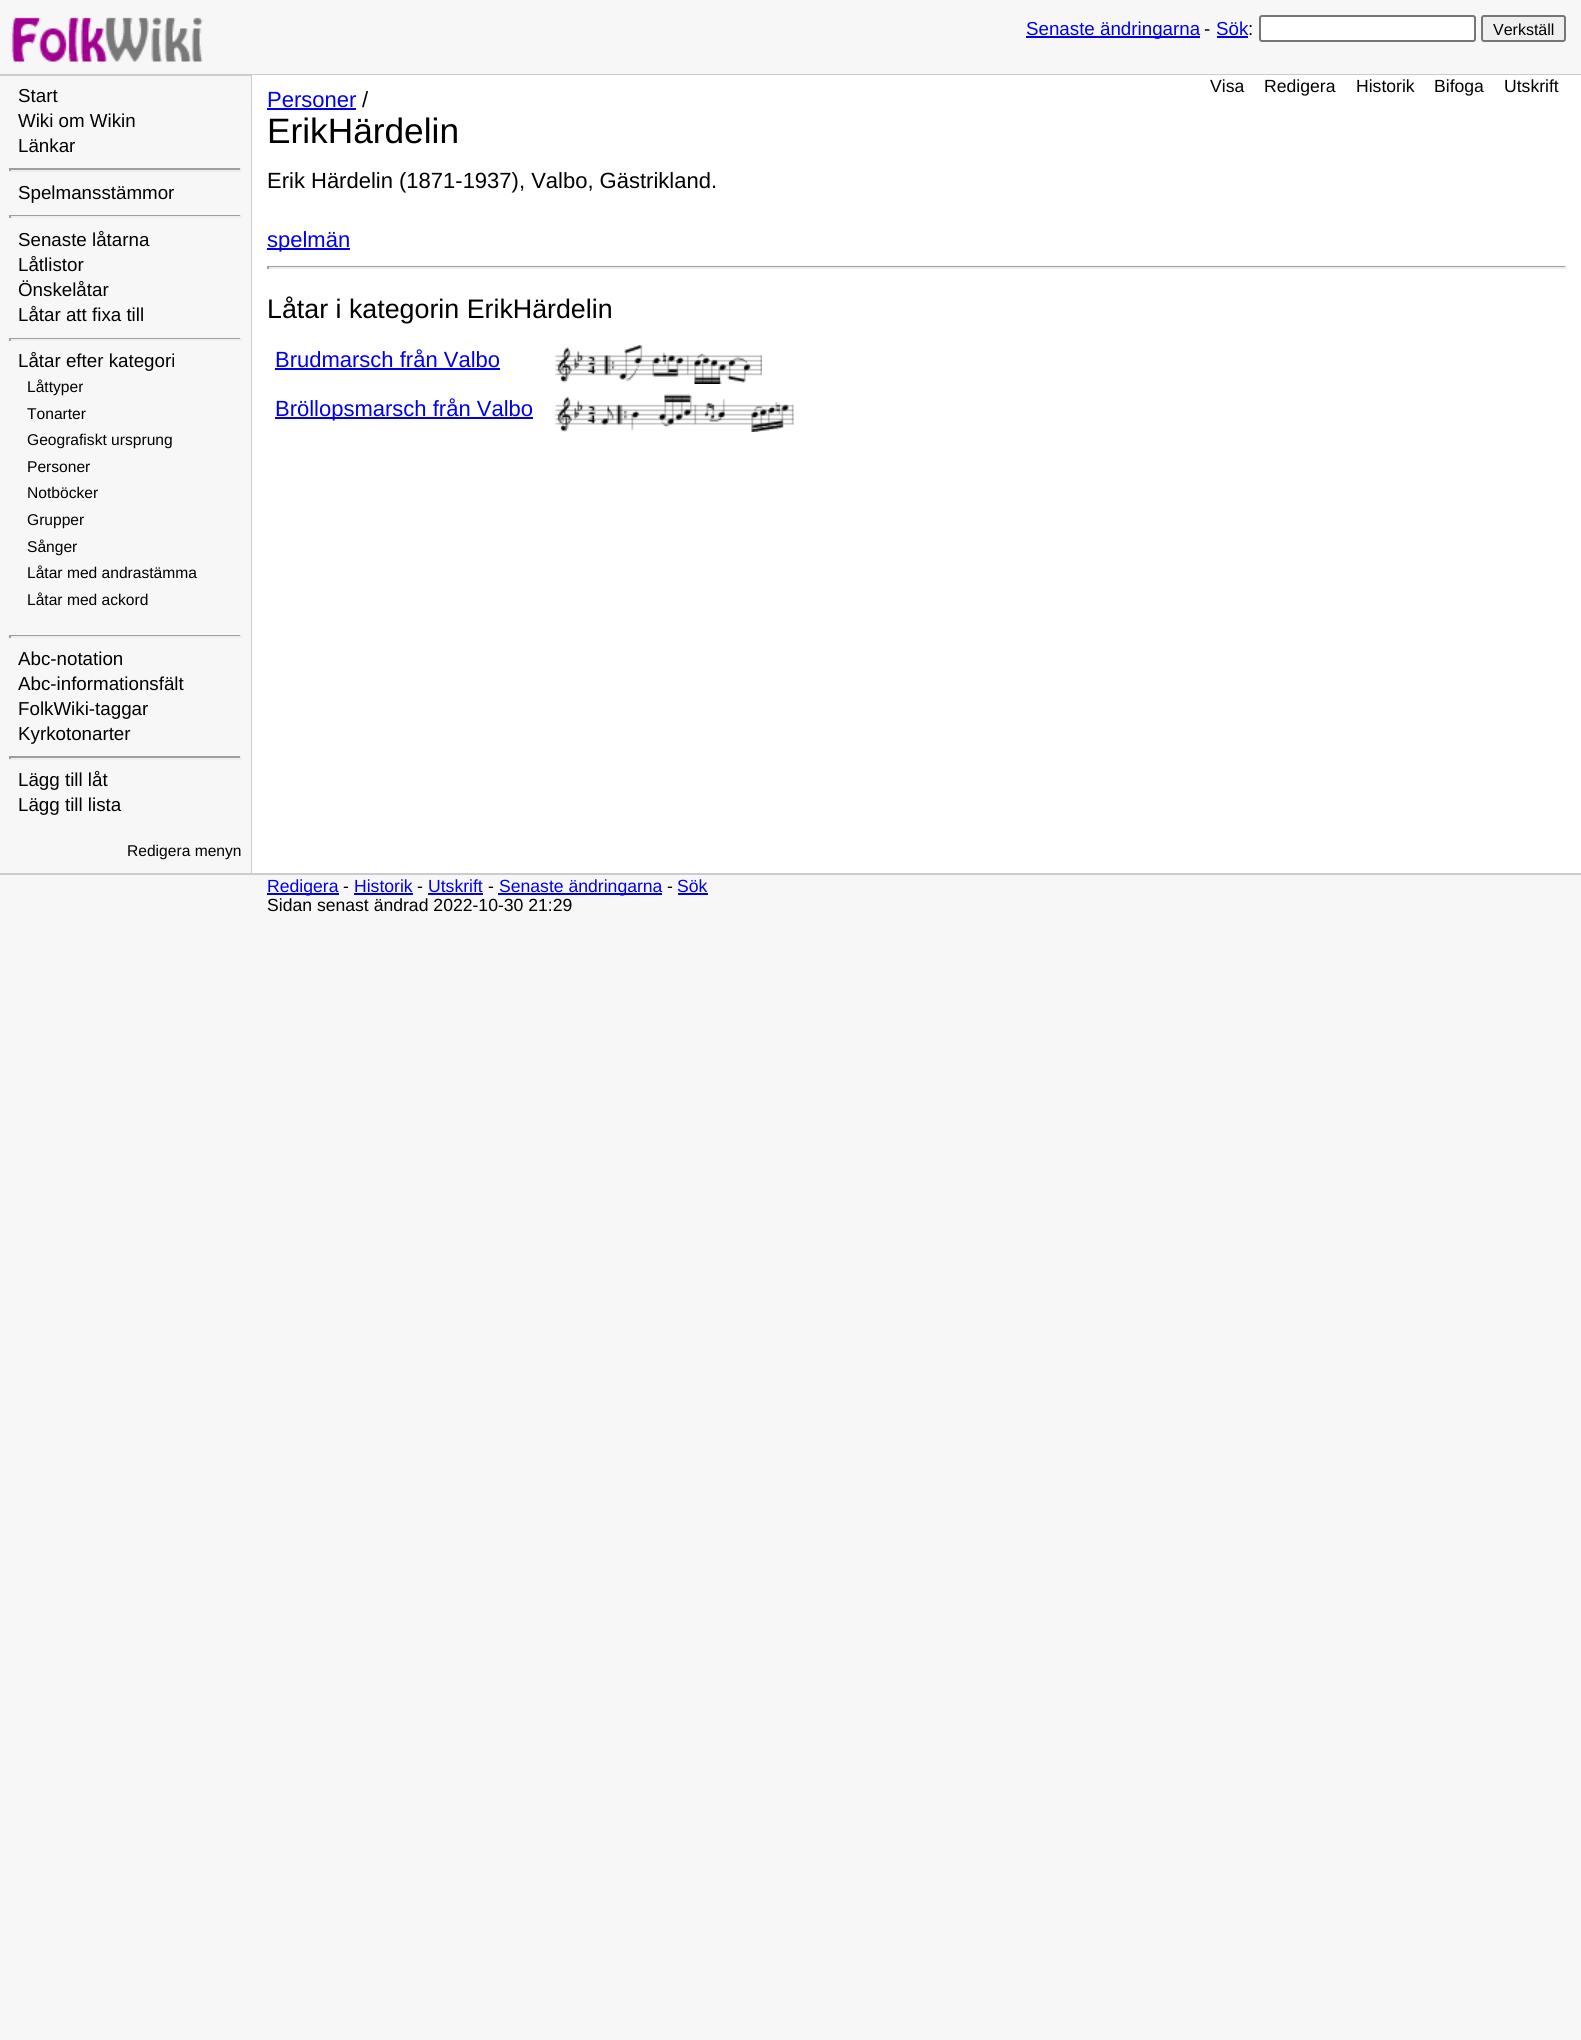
import math
import cairo

surface = cairo.ImageSurface(cairo.Format.RGB24, 1581, 2040)
ctx = cairo.Context(surface)
options = cairo.FontOptions()
options.set_hint_metrics(cairo.HintMetrics.OFF)
options.set_hint_style(cairo.HintStyle.NONE)
ctx.set_font_options(options)
ctx.set_miter_limit(4)


def ink(r, g, b):
    ctx.set_source_rgb(r / 255, g / 255, b / 255)


def write(x, y, s, family, size, color, bold=False, italic=False):
    ctx.select_font_face(family, cairo.FontSlant.ITALIC if italic else cairo.FontSlant.NORMAL, cairo.FontWeight.BOLD if bold else cairo.FontWeight.NORMAL)
    ctx.set_font_size(size)
    ink(*color)
    ctx.move_to(x, y)
    ctx.show_text(s)


def block(x, y, w, h, *color):
    ink(*color)
    ctx.rectangle(x, y, w, h)
    ctx.fill()


def round_path(x, y, w, h, r):
    ctx.new_sub_path()
    for i, (u, v) in enumerate([(x + w - r, y + h - r), (x + r, y + h - r), (x + r, y + r), (x + w - r, y + r)]):
        ctx.arc(u, v, r, i * math.pi / 2, (i + 1) * math.pi / 2)
    ctx.close_path()


def paste(path, x, y, w, h):
    ctx.save()
    ctx.set_source_surface(cairo.ImageSurface.create_from_png(path), x, y)
    ctx.rectangle(x, y, w, h)
    ctx.fill()
    ctx.restore()


s1 = dict(family="Liberation Sans", size=18.75, color=(0, 0, 238))
s2 = dict(family="Liberation Sans", size=18.75, color=(0, 0, 0))
s3 = dict(family="Liberation Sans", size=16, color=(0, 0, 0))
s4 = dict(family="Liberation Sans", size=15.6, color=(0, 0, 0))
s5 = dict(family="Liberation Sans", size=17.6, color=(0, 0, 0))
s6 = dict(family="Liberation Sans", size=22, color=(0, 0, 238))
s7 = dict(family="Liberation Sans", size=22, color=(0, 0, 0))
s8 = dict(family="Liberation Sans", size=35.25, color=(0, 0, 0))
s9 = dict(family="Liberation Sans", size=26.8, color=(0, 0, 0))
s10 = dict(family="Liberation Sans", size=17.6, color=(0, 0, 238))

ink(247, 247, 247)
ctx.paint()
block(0, 74, 1581, 2, 204, 204, 204)
paste("pic1.png", 11, 17, 192, 45)
block(1026, 36, 174, 2, 0, 0, 238)
write(1026, 35, "Senaste ändringarna", **s1)
write(1204, 35, "-", **s2)
write(1216, 35, "Sök", **s1)
block(1217, 36, 31, 2, 0, 0, 238)
write(1248, 35, ":", **s2)
ink(255, 255, 255)
round_path(1260, 16, 215, 25, 2)
ctx.fill_preserve()
ink(118, 118, 118)
ctx.stroke()
ink(239, 239, 239)
round_path(1482, 16, 83, 25, 2)
ctx.fill_preserve()
ink(118, 118, 118)
ctx.stroke()
write(1493, 35, "Verkställ", **s3)
block(251, 75, 1, 798, 204, 204, 204)
write(18, 102, "Start", **s2)
write(18, 127, "Wiki om Wikin", **s2)
write(18, 152, "Länkar", **s2)
block(9, 168, 233, 2, 159, 159, 159)
block(240, 168, 2, 3, 238, 238, 238)
block(9, 170, 233, 2, 238, 238, 238)
block(9, 168, 2, 3, 159, 159, 159)
write(18, 199, "Spelmansstämmor", **s2)
block(9, 215, 233, 1, 159, 159, 159)
block(240, 215, 2, 3, 238, 238, 238)
block(9, 216, 233, 2, 238, 238, 238)
block(9, 215, 2, 3, 159, 159, 159)
write(18, 246, "Senaste låtarna", **s2)
write(18, 271, "Låtlistor", **s2)
write(18, 296, "Önskelåtar", **s2)
write(18, 321, "Låtar att fixa till", **s2)
block(9, 338, 233, 1, 159, 159, 159)
block(240, 338, 2, 3, 238, 238, 238)
block(9, 339, 233, 2, 238, 238, 238)
block(9, 338, 2, 3, 159, 159, 159)
write(18, 367, "Låtar efter kategori", **s2)
write(27, 392, "Låttyper", **s4)
write(27, 419, "Tonarter", **s4)
write(27, 445, "Geografiskt ursprung", **s4)
write(27, 472, "Personer", **s4)
write(27, 498, "Notböcker", **s4)
write(27, 525, "Grupper", **s4)
write(27, 552, "Sånger", **s4)
write(27, 578, "Låtar med andrastämma", **s4)
write(27, 605, "Låtar med ackord", **s4)
block(9, 635, 233, 1, 159, 159, 159)
block(240, 635, 2, 3, 238, 238, 238)
block(9, 636, 233, 2, 238, 238, 238)
block(9, 635, 2, 3, 159, 159, 159)
write(18, 665, "Abc-notation", **s2)
write(18, 690, "Abc-informationsfält", **s2)
write(18, 715, "FolkWiki-taggar", **s2)
write(18, 740, "Kyrkotonarter", **s2)
block(9, 756, 233, 2, 159, 159, 159)
block(240, 756, 2, 3, 238, 238, 238)
block(9, 758, 233, 2, 238, 238, 238)
block(9, 756, 2, 3, 159, 159, 159)
write(18, 786, "Lägg till låt", **s2)
write(18, 811, "Lägg till lista", **s2)
write(127, 856, "Redigera menyn", **s4)
block(252, 75, 1329, 798, 255, 255, 255)
write(1210, 92, "Visa", **s5)
write(1264, 92, "Redigera", **s5)
write(1356, 92, "Historik", **s5)
write(1434, 92, "Bifoga", **s5)
write(1504, 92, "Utskrift", **s5)
write(267, 107, "Personer", **s6)
block(267, 108, 89, 2, 0, 0, 238)
write(362, 107, "/", **s7)
write(267, 143, "ErikHärdelin", **s8)
write(267, 188, "Erik Härdelin (1871-1937), Valbo, Gästrikland.", **s7)
block(267, 248, 83, 2, 0, 0, 238)
write(267, 247, "spelmän", **s6)
block(267, 266, 1299, 1, 159, 159, 159)
block(1565, 266, 2, 3, 238, 238, 238)
block(267, 267, 1299, 2, 238, 238, 238)
block(267, 266, 2, 3, 159, 159, 159)
write(267, 318, "Låtar i kategorin ErikHärdelin", **s9)
write(275, 367, "Brudmarsch från Valbo", **s6)
block(275, 368, 225, 2, 0, 0, 238)
paste("pic2.png", 555, 345, 207, 39)
block(275, 417, 258, 2, 0, 0, 238)
write(275, 416, "Bröllopsmarsch från Valbo", **s6)
paste("pic3.png", 555, 394, 239, 38)
block(0, 873, 1581, 2, 204, 204, 204)
block(267, 893, 72, 2, 0, 0, 238)
write(267, 892, "Redigera", **s10)
write(343, 892, "-", **s5)
write(354, 892, "Historik", **s10)
block(354, 893, 59, 2, 0, 0, 238)
write(417, 892, "-", **s5)
write(428, 892, "Utskrift", **s10)
block(428, 893, 55, 2, 0, 0, 238)
write(488, 892, "-", **s5)
block(498, 893, 164, 2, 0, 0, 238)
write(499, 892, "Senaste ändringarna", **s10)
write(667, 892, "-", **s5)
write(677, 892, "Sök", **s10)
block(678, 893, 30, 2, 0, 0, 238)
write(267, 911, "Sidan senast ändrad 2022-10-30 21:29", **s5)
surface.write_to_png("screenshot.png")
